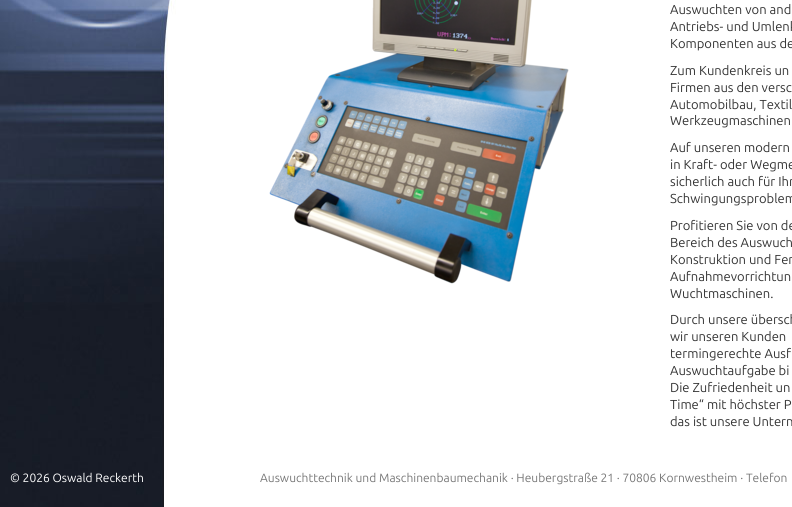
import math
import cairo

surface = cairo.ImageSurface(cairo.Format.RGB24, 792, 507)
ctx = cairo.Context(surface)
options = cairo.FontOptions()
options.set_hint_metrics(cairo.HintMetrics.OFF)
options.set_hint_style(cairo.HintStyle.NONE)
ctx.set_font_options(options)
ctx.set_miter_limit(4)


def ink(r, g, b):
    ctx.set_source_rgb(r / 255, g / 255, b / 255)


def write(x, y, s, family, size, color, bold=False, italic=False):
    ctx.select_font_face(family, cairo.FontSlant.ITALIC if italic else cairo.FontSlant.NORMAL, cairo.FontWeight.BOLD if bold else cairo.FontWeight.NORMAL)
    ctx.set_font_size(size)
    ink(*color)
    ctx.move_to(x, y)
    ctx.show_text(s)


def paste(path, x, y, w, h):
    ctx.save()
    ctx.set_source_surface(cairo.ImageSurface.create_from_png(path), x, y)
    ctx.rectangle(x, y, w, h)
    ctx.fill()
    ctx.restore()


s1 = dict(family="Ubuntu", size=13, color=(51, 51, 51))
s2 = dict(family="Ubuntu", size=12, color=(255, 255, 255))
s3 = dict(family="Ubuntu", size=12, color=(119, 119, 119))

ink(255, 255, 255)
ctx.paint()
paste("pic1.png", 0, 0, 176, 507)
paste("pic2.png", 269, 0, 300, 284)
write(670, 14, "Auswuchten von and", **s1)
write(670, 31, "Antriebs- und Umlenk", **s1)
write(670, 48, "Komponenten aus de", **s1)
write(670, 75, "Zum Kundenkreis un", **s1)
write(670, 92, "Firmen aus den versc", **s1)
write(670, 109, "Automobilbau, Textil", **s1)
write(670, 125, "Werkzeugmaschinen", **s1)
write(670, 152, "Auf unseren modern", **s1)
write(670, 169, "in Kraft- oder Wegme", **s1)
write(670, 186, "sicherlich auch für Ihr", **s1)
write(670, 203, "Schwingungsproblem", **s1)
write(670, 230, "Profitieren Sie von de", **s1)
write(670, 247, "Bereich des Auswuch", **s1)
write(670, 264, "Konstruktion und Fer", **s1)
write(670, 281, "Aufnahmevorrichtun", **s1)
write(670, 298, "Wuchtmaschinen.", **s1)
write(670, 324, "Durch unsere übersch", **s1)
write(670, 341, "wir unseren Kunden", **s1)
write(670, 358, "termingerechte Ausf", **s1)
write(670, 375, "Auswuchtaufgabe bi", **s1)
write(670, 392, "Die Zufriedenheit un", **s1)
write(670, 409, "Time“ mit höchster P", **s1)
write(670, 426, "das ist unsere Untern", **s1)
write(10, 482, "© 2026 Oswald Reckerth", **s2)
write(260, 482, "Auswuchttechnik und Maschinenbaumechanik · Heubergstraße 21 · 70806 Kornwestheim · Telefon", **s3)
surface.write_to_png("screenshot.png")
